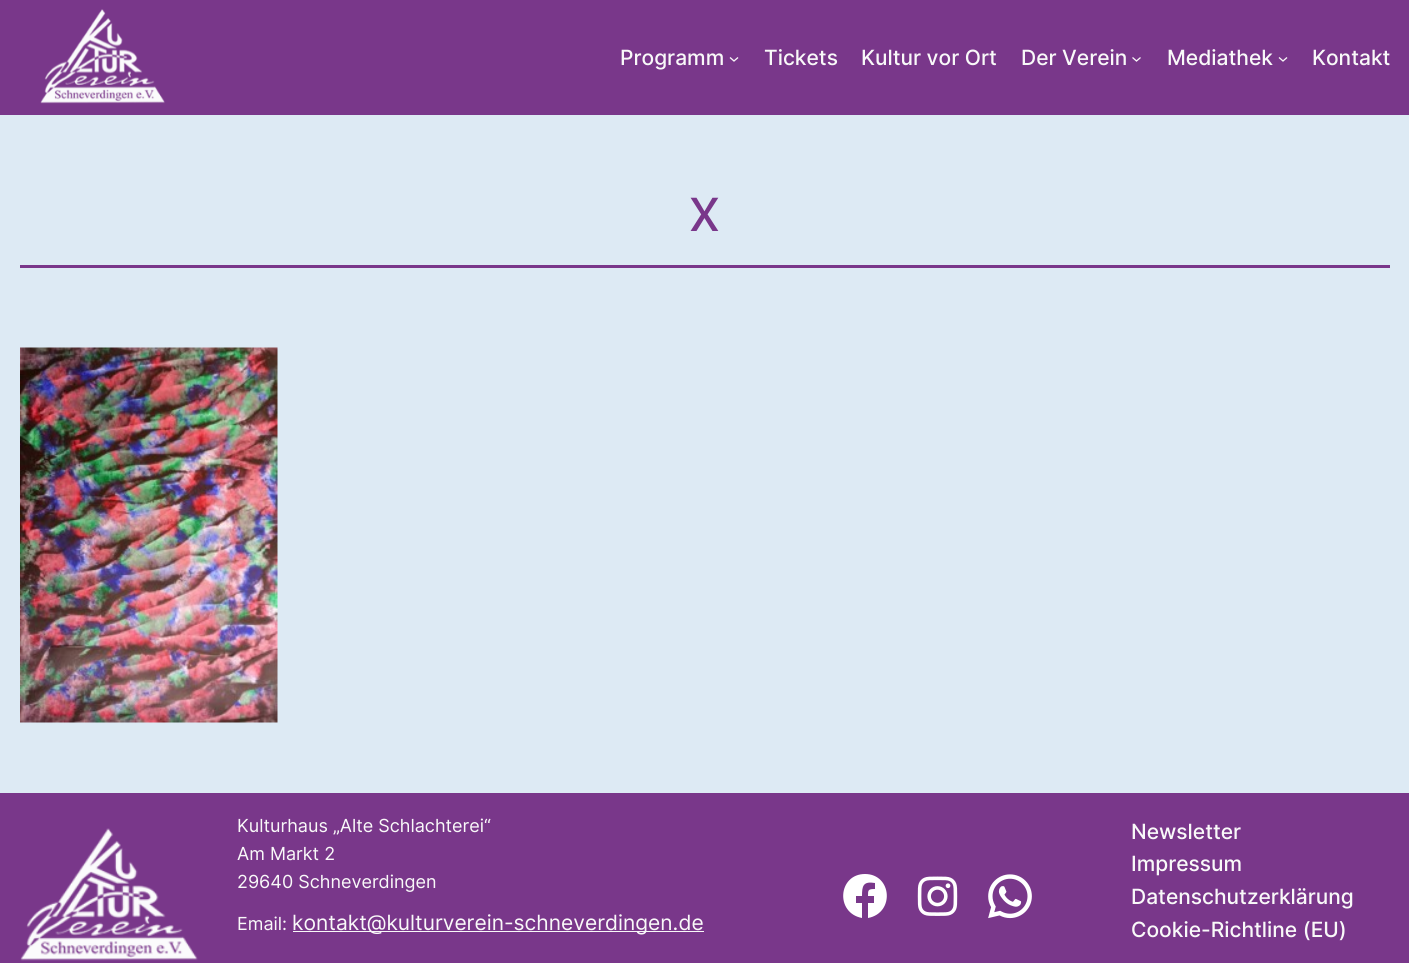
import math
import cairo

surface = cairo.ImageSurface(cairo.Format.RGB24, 1409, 963)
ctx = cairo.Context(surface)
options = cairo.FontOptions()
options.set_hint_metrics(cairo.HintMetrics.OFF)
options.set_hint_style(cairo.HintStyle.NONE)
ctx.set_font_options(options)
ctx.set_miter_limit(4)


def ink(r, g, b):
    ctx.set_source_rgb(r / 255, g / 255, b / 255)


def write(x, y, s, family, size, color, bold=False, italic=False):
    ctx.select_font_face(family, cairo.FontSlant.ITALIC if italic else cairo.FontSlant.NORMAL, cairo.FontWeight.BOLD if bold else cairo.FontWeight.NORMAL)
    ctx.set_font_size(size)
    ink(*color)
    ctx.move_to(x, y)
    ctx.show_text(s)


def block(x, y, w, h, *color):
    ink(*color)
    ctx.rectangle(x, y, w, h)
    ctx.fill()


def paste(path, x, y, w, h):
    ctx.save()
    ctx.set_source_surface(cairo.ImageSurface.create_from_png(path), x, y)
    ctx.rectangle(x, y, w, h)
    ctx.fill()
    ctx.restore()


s1 = dict(family="Inter Medium", size=21, color=(249, 249, 249))
s2 = dict(family="Inter", size=61, color=(121, 55, 138))
s3 = dict(family="Inter", size=18, color=(249, 249, 249))
s4 = dict(family="Inter", size=21, color=(249, 249, 249))

ink(221, 234, 244)
ctx.paint()
block(0, 0, 1409, 115, 121, 55, 138)
paste("pic1.png", 40, 9, 125, 95)
write(620, 65, "Programm", **s1)
ctx.new_path()
ctx.move_to(730, 57.5)
ctx.line_to(734, 61)
ctx.line_to(738, 57.5)
ctx.set_line_width(1.3)
ctx.stroke()
write(764, 65, "Tickets", **s1)
write(861, 65, "Kultur vor Ort", **s1)
write(1021, 65, "Der Verein", **s1)
ctx.new_path()
ctx.move_to(1132.5, 57.5)
ctx.line_to(1136.5, 61)
ctx.line_to(1140.5, 57.5)
ctx.stroke()
write(1167, 65, "Mediathek", **s1)
ctx.new_path()
ctx.move_to(1279, 57.5)
ctx.line_to(1283, 61)
ctx.line_to(1287, 57.5)
ctx.stroke()
write(1312, 65, "Kontakt", **s1)
write(688, 231, "x", **s2)
block(20, 265, 1370, 3, 121, 55, 138)
paste("pic2.png", 20, 347, 258, 376)
block(0, 793, 1409, 170, 121, 55, 138)
paste("pic3.png", 20, 828, 178, 133)
write(237, 832, "Kulturhaus „Alte Schlachterei“", **s3)
write(237, 860, "Am Markt 2", **s3)
write(237, 888, "29640 Schneverdingen", **s3)
write(237, 930, "Email:", **s3)
block(293, 931, 411, 1, 249, 249, 249)
write(292, 930, "kontakt@kulturverein-schneverdingen.de", **s4)
ink(255, 255, 255)
ctx.new_path()
ctx.move_to(865, 874)
ctx.curve_to(838, 874, 835, 913, 862, 918)
ctx.line_to(862, 903)
ctx.line_to(856, 903)
ctx.line_to(856, 896)
ctx.line_to(862, 896)
ctx.curve_to(862, 886, 863, 881, 875, 883)
ctx.line_to(875, 889)
ctx.curve_to(868, 889, 868, 890, 868, 896)
ctx.line_to(874, 896)
ctx.line_to(874, 903)
ctx.line_to(868, 903)
ctx.line_to(868, 918)
ctx.curve_to(895, 913, 892, 874, 865, 874)
ctx.close_path()
ctx.fill()
paste("pic4.png", 917, 876, 41, 40)
paste("pic5.png", 988, 874, 44, 45)
write(1131, 839, "Newsletter", **s1)
write(1131, 871, "Impressum", **s1)
write(1131, 904, "Datenschutzerklärung", **s1)
write(1131, 937, "Cookie-Richtline (EU)", **s1)
surface.write_to_png("screenshot.png")
